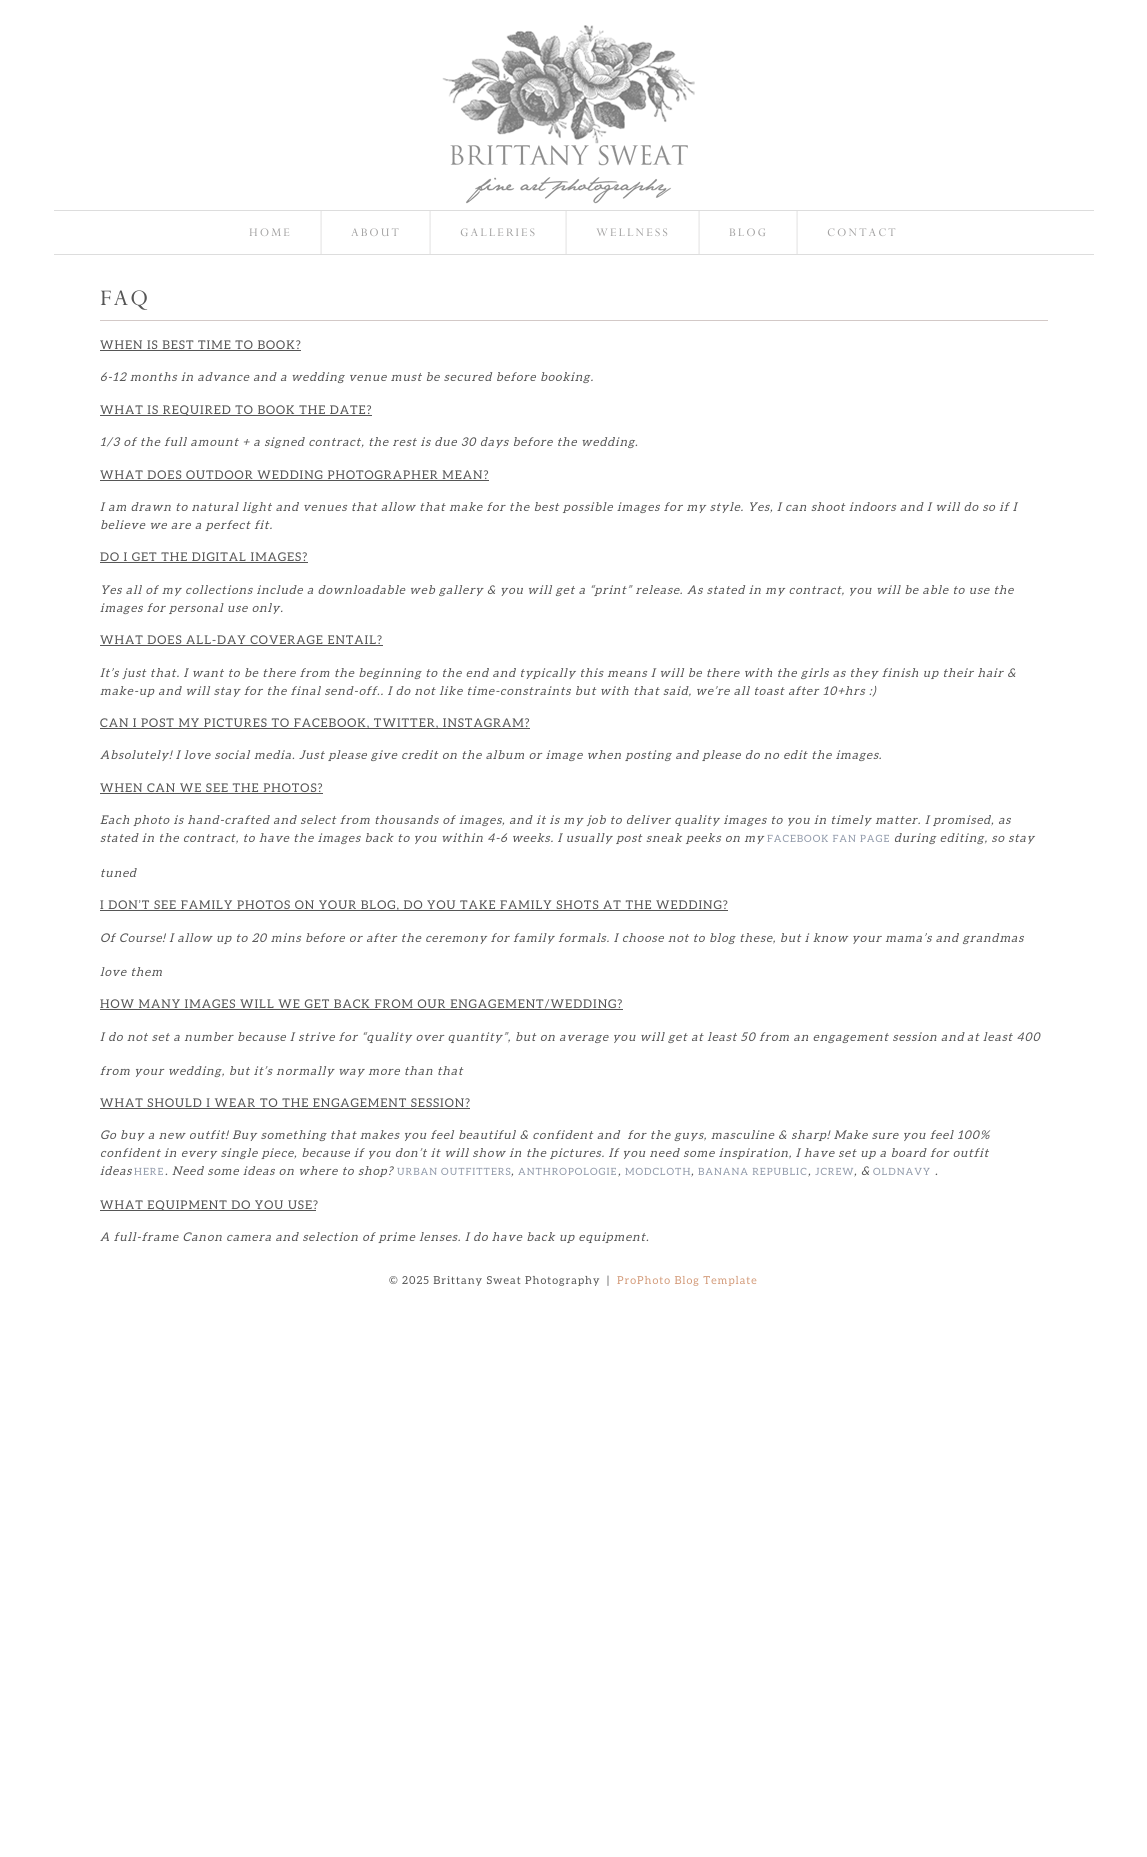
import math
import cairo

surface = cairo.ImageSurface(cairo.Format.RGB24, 1147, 1857)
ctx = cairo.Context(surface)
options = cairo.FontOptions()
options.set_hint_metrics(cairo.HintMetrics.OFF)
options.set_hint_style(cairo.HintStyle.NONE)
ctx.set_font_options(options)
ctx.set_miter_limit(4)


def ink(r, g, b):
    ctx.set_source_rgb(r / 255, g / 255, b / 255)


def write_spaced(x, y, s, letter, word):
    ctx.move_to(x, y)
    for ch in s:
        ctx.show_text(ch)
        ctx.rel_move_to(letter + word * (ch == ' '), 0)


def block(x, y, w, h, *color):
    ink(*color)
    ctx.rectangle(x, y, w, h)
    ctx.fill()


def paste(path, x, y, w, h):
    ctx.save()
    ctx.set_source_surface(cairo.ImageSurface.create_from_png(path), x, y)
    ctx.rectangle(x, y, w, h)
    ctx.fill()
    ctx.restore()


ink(255, 255, 255)
ctx.paint()
paste("pic1.png", 442, 25, 253, 179)
block(54, 210, 1040, 1, 221, 221, 221)
block(54, 254, 1040, 1, 221, 221, 221)
ctx.select_font_face("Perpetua")
ctx.set_font_size(13)
ink(163, 162, 162)
write_spaced(249, 236, "HOME", 2, 0)
paste("pic2.png", 320, 211, 2, 43)
write_spaced(351, 236, "ABOUT", 2, 0)
paste("pic2.png", 429, 211, 2, 43)
write_spaced(460, 236, "GALLERIES", 2, 0)
paste("pic2.png", 565, 211, 2, 43)
write_spaced(596, 236, "WELLNESS", 2, 0)
paste("pic2.png", 698, 211, 2, 43)
write_spaced(729, 236, "BLOG", 2, 0)
paste("pic2.png", 796, 211, 2, 43)
write_spaced(827, 236, "CONTACT", 2, 0)
ctx.set_font_size(25)
ink(86, 86, 86)
write_spaced(100, 305, "FAQ", 2, 0)
block(100, 320, 948, 1, 211, 201, 199)
ctx.select_font_face("Aleo")
ctx.set_font_size(12)
ink(86, 86, 86)
write_spaced(100, 349, "WHEN IS BEST TIME TO BOOK?", 1, 0)
block(100, 350, 201, 1, 86, 86, 86)
ctx.select_font_face("Aleo", cairo.FontSlant.ITALIC)
write_spaced(100, 381, "6-12 months in advance and a wedding venue must be secured before booking.", 1, 0)
block(100, 415, 272, 1, 86, 86, 86)
ctx.select_font_face("Aleo")
write_spaced(100, 414, "WHAT IS REQUIRED TO BOOK THE DATE?", 1, 0)
ctx.select_font_face("Aleo", cairo.FontSlant.ITALIC)
write_spaced(100, 446, "1/3 of the full amount + a signed contract, the rest is due 30 days before the wedding.", 1, 0)
ctx.select_font_face("Aleo")
write_spaced(100, 479, "WHAT DOES OUTDOOR WEDDING PHOTOGRAPHER MEAN?", 1, 0)
block(100, 480, 389, 1, 86, 86, 86)
ctx.select_font_face("Aleo", cairo.FontSlant.ITALIC)
write_spaced(100, 511, "I am drawn to natural light and venues that allow that make for the best possible images for my style. Yes, I can shoot indoors and I will do so if I", 1, 0)
write_spaced(100, 529, "believe we are a perfect fit.", 1, 0)
ctx.select_font_face("Aleo")
write_spaced(100, 561, "DO I GET THE DIGITAL IMAGES?", 1, 0)
block(100, 562, 208, 1, 86, 86, 86)
ctx.select_font_face("Aleo", cairo.FontSlant.ITALIC)
write_spaced(100, 594, "Yes all of my collections include a downloadable web gallery & you will get a “print” release. As stated in my contract, you will be able to use the", 1, 0)
write_spaced(100, 612, "images for personal use only.", 1, 0)
ctx.select_font_face("Aleo")
write_spaced(100, 644, "WHAT DOES ALL-DAY COVERAGE ENTAIL?", 1, 0)
block(100, 645, 283, 1, 86, 86, 86)
ctx.select_font_face("Aleo", cairo.FontSlant.ITALIC)
write_spaced(100, 677, "It’s just that. I want to be there from the beginning to the end and typically this means I will be there with the girls as they finish up their hair &", 1, 0)
write_spaced(100, 695, "make-up and will stay for the final send-off.. I do not like time-constraints but with that said, we’re all toast after 10+hrs :)", 1, 0)
block(100, 728, 430, 1, 86, 86, 86)
ctx.select_font_face("Aleo")
write_spaced(100, 727, "CAN I POST MY PICTURES TO FACEBOOK, TWITTER, INSTAGRAM?", 1, 0)
ctx.select_font_face("Aleo", cairo.FontSlant.ITALIC)
write_spaced(100, 759, "Absolutely! I love social media. Just please give credit on the album or image when posting and please do no edit the images.", 1, 0)
ctx.select_font_face("Aleo")
write_spaced(100, 792, "WHEN CAN WE SEE THE PHOTOS?", 1, 0)
block(100, 793, 223, 1, 86, 86, 86)
ctx.select_font_face("Aleo", cairo.FontSlant.ITALIC)
write_spaced(100, 824, "Each photo is hand-crafted and select from thousands of images, and it is my job to deliver quality images to you in timely matter. I promised, as", 1, 0)
write_spaced(100, 842, "stated in the contract, to have the images back to you within 4-6 weeks. I usually post sneak peeks on my", 1, 0)
ctx.select_font_face("Aleo")
ctx.set_font_size(10)
ink(146, 155, 171)
write_spaced(767, 842, "FACEBOOK FAN PAGE", 1, 0)
ctx.select_font_face("Aleo", cairo.FontSlant.ITALIC)
ctx.set_font_size(12)
ink(86, 86, 86)
write_spaced(894, 842, "during editing, so stay", 1, 0)
write_spaced(100, 877, "tuned", 1, 0)
block(100, 910, 628, 1, 86, 86, 86)
ctx.select_font_face("Aleo")
write_spaced(100, 909, "I DON’T SEE FAMILY PHOTOS ON YOUR BLOG, DO YOU TAKE FAMILY SHOTS AT THE WEDDING?", 1, 0)
ctx.select_font_face("Aleo", cairo.FontSlant.ITALIC)
write_spaced(100, 942, "Of Course! I allow up to 20 mins before or after the ceremony for family formals. I choose not to blog these, but i know your mama’s and grandmas", 1, 0)
write_spaced(100, 976, "love them", 1, 0)
ctx.select_font_face("Aleo")
write_spaced(100, 1008, "HOW MANY IMAGES WILL WE GET BACK FROM OUR ENGAGEMENT/WEDDING?", 1, 0)
block(100, 1009, 523, 1, 86, 86, 86)
ctx.select_font_face("Aleo", cairo.FontSlant.ITALIC)
write_spaced(100, 1041, "I do not set a number because I strive for “quality over quantity”, but on average you will get at least 50 from an engagement session and", 1, 0)
write_spaced(967, 1041, "at least 400", 1, 0)
write_spaced(100, 1075, "from your wedding, but it’s normally way more than that", 1, 0)
ctx.select_font_face("Aleo")
write_spaced(100, 1107, "WHAT SHOULD I WEAR TO THE ENGAGEMENT SESSION?", 1, 0)
block(100, 1108, 370, 1, 86, 86, 86)
ctx.select_font_face("Aleo", cairo.FontSlant.ITALIC)
write_spaced(100, 1139, "Go buy a new outfit! Buy something that makes you feel beautiful & confident and  for the guys, masculine & sharp! Make sure you feel 100%", 1, 0)
write_spaced(100, 1157, "confident in every single piece, because if you don’t it will show in the pictures. If you need some inspiration, I have set up a board for outfit", 1, 0)
write_spaced(100, 1175, "ideas", 1, 0)
ctx.select_font_face("Aleo")
ctx.set_font_size(10)
ink(146, 155, 171)
write_spaced(134, 1175, "HERE", 1, 0)
ctx.select_font_face("Aleo", cairo.FontSlant.ITALIC)
ctx.set_font_size(12)
ink(86, 86, 86)
write_spaced(165, 1175, ". Need some ideas on where to shop?", 1, 0)
ctx.select_font_face("Aleo")
ctx.set_font_size(10)
ink(146, 155, 171)
write_spaced(397, 1175, "URBAN OUTFITTERS", 1, 0)
ctx.select_font_face("Aleo", cairo.FontSlant.ITALIC)
ctx.set_font_size(12)
ink(86, 86, 86)
write_spaced(511, 1175, ",", 1, 0)
ctx.select_font_face("Aleo")
ctx.set_font_size(10)
ink(146, 155, 171)
write_spaced(518, 1175, "ANTHROPOLOGIE", 1, 0)
ctx.select_font_face("Aleo", cairo.FontSlant.ITALIC)
ctx.set_font_size(12)
ink(86, 86, 86)
write_spaced(618, 1175, ",", 1, 0)
ctx.select_font_face("Aleo")
ctx.set_font_size(10)
ink(146, 155, 171)
write_spaced(625, 1175, "MODCLOTH", 1, 0)
ctx.select_font_face("Aleo", cairo.FontSlant.ITALIC)
ctx.set_font_size(12)
ink(86, 86, 86)
write_spaced(691, 1175, ",", 1, 0)
ctx.select_font_face("Aleo")
ctx.set_font_size(10)
ink(146, 155, 171)
write_spaced(698, 1175, "BANANA REPUBLIC", 1, 0)
ctx.select_font_face("Aleo", cairo.FontSlant.ITALIC)
ctx.set_font_size(12)
ink(86, 86, 86)
write_spaced(808, 1175, ",", 1, 0)
ctx.select_font_face("Aleo")
ctx.set_font_size(10)
ink(146, 155, 171)
write_spaced(815, 1175, "JCREW", 1, 0)
ctx.select_font_face("Aleo", cairo.FontSlant.ITALIC)
ctx.set_font_size(12)
ink(86, 86, 86)
write_spaced(854, 1175, ", &", 1, 0)
ctx.select_font_face("Aleo")
ctx.set_font_size(10)
ink(146, 155, 171)
write_spaced(873, 1175, "OLDNAVY", 1, 0)
ctx.select_font_face("Aleo", cairo.FontSlant.ITALIC)
ctx.set_font_size(12)
ink(86, 86, 86)
write_spaced(935, 1175, ".", 1, 0)
block(100, 1210, 216, 1, 86, 86, 86)
ctx.select_font_face("Aleo")
write_spaced(100, 1209, "WHAT EQUIPMENT DO YOU USE?", 1, 0)
ctx.select_font_face("Aleo", cairo.FontSlant.ITALIC)
write_spaced(100, 1241, "A full-frame Canon camera and selection of prime lenses. I do have back up equipment.", 1, 0)
ctx.select_font_face("Aleo")
ctx.set_font_size(11)
write_spaced(389, 1284, "© 2025 Brittany Sweat Photography", 1, 0)
write_spaced(607, 1284, "|", 1, 0)
ink(211, 155, 122)
write_spaced(617, 1284, "ProPhoto Blog Template", 1, 0)
surface.write_to_png("screenshot.png")
